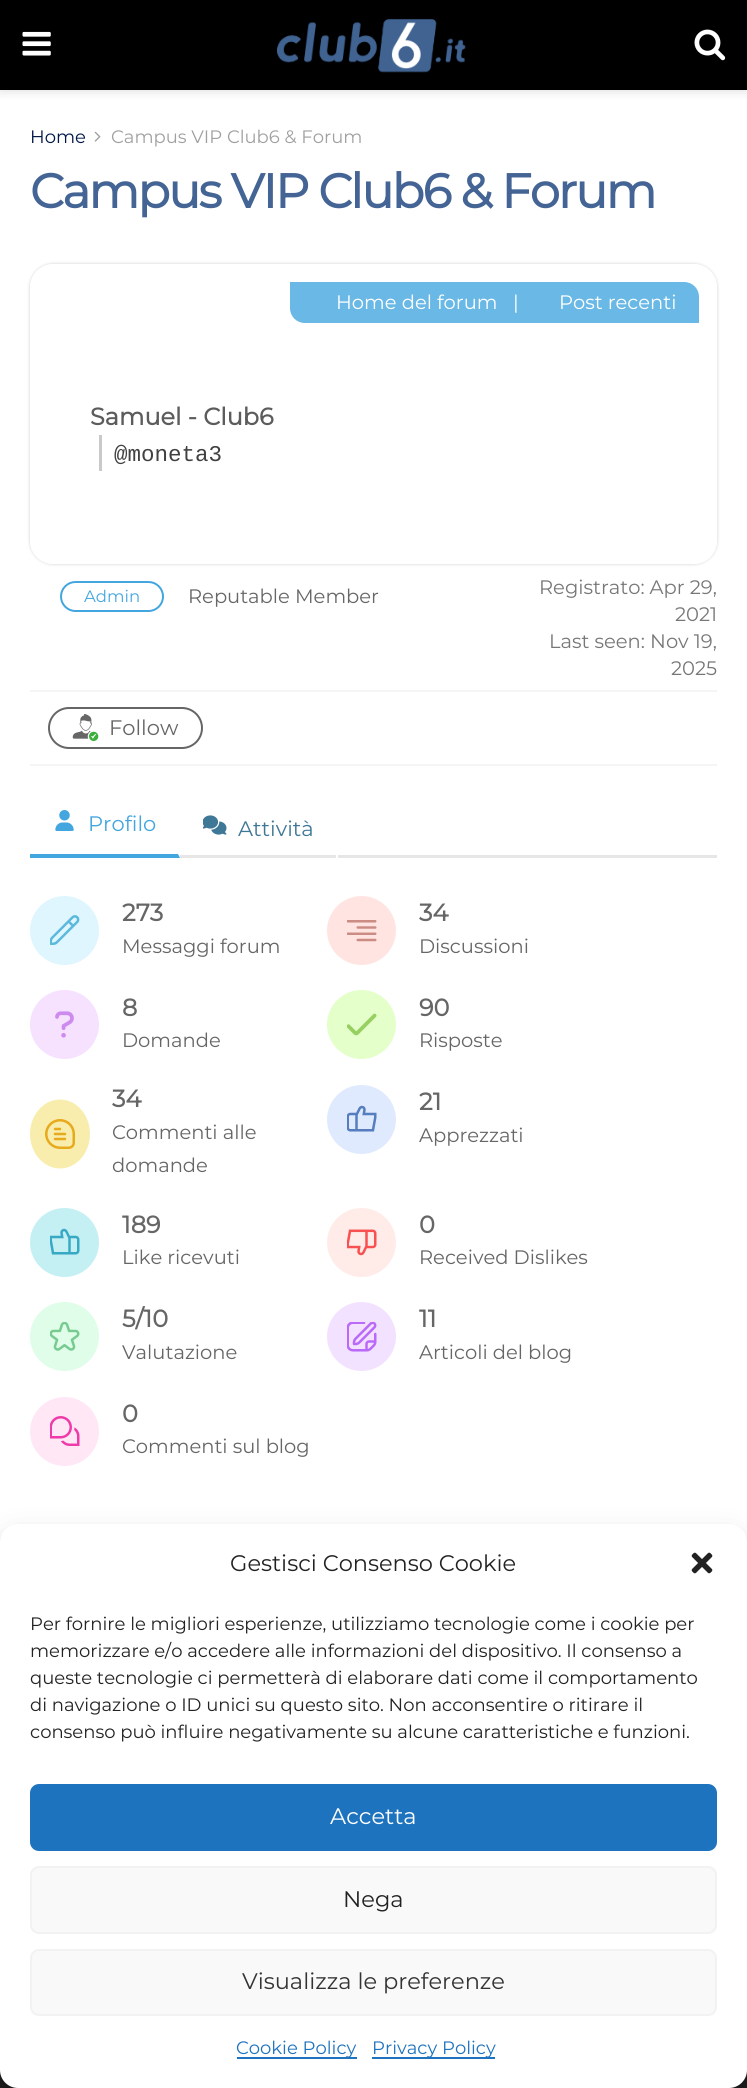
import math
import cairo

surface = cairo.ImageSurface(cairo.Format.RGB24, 747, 2088)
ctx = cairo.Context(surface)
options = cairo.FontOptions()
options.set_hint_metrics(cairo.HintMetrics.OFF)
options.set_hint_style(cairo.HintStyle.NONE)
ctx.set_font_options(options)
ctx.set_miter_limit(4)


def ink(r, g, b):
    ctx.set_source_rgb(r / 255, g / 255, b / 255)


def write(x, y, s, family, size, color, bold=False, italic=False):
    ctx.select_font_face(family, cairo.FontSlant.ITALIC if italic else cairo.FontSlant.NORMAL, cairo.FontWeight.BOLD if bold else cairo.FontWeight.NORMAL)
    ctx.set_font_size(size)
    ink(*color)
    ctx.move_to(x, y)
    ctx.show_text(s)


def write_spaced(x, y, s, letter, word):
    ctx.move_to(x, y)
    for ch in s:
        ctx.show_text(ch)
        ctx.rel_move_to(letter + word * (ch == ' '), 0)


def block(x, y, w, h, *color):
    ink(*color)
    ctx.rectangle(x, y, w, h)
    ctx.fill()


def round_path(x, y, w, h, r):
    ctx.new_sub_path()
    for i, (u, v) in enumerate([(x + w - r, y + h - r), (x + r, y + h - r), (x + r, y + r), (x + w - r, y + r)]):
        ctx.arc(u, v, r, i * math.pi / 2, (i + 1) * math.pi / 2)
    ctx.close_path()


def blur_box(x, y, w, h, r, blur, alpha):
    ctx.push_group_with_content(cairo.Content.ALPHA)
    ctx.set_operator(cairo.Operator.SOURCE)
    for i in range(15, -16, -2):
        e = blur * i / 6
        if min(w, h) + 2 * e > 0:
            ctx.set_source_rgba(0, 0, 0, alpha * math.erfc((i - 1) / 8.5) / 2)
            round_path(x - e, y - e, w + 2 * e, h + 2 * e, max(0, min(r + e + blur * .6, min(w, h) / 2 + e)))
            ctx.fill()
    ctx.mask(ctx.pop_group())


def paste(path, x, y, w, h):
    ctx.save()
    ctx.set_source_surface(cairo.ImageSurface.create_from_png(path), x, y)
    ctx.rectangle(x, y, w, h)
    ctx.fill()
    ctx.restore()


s1 = dict(family="Montserrat Thin", size=18, color=(1, 23, 71))
s2 = dict(family="Montserrat Thin", size=18, color=(160, 160, 160))
s3 = dict(family="Montserrat Thin", size=19.5, color=(255, 255, 255))
s4 = dict(family="Montserrat", size=24, color=(92, 92, 92), bold=True)
s5 = dict(family="Liberation Mono", size=22.5, color=(65, 65, 65))
s6 = dict(family="Montserrat Thin", size=16.5, color=(67, 166, 223))
s7 = dict(family="Montserrat Thin", size=19.5, color=(102, 102, 102))
s8 = dict(family="Montserrat Thin", size=19.5, color=(119, 119, 119))
s9 = dict(family="Montserrat Thin", size=21, color=(102, 102, 102))
s10 = dict(family="Montserrat Thin", size=21, color=(67, 166, 223))
s11 = dict(family="Montserrat Thin", size=21, color=(63, 119, 150))
s12 = dict(family="Montserrat", size=24, color=(102, 102, 102), bold=True)
s13 = dict(family="Montserrat Thin", size=22.5, color=(34, 34, 34))
s14 = dict(family="Montserrat Thin", size=18, color=(34, 34, 34))
s15 = dict(family="Montserrat Thin", size=22.5, color=(255, 255, 255))
s16 = dict(family="Montserrat Thin", size=22.5, color=(51, 51, 51))
s17 = dict(family="Montserrat Thin", size=18, color=(30, 115, 190))

ink(255, 255, 255)
ctx.paint()
ink(0, 0, 0)
blur_box(0, 3, 747, 90, 0, 4.5, 0.1)
block(0, 0, 747, 90, 0, 0, 0)
paste("pic1.png", 22, 31, 29, 25)
paste("pic2.png", 277, 18, 189, 55)
paste("pic3.png", 694, 29, 32, 32)
write(30, 143, "Home", **s1)
paste("pic4.png", 94, 131, 7, 11)
write(111, 143, "Campus VIP Club6 & Forum", **s2)
ctx.select_font_face("Montserrat", cairo.FontSlant.NORMAL, cairo.FontWeight.BOLD)
ctx.set_font_size(48)
ink(67, 100, 148)
write_spaced(30, 208, "Campus VIP Club6 & Forum", -1.9, 0)
ctx.save()
ctx.set_fill_rule(cairo.FillRule.EVEN_ODD)
ctx.new_path()
ctx.move_to(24, 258)
ctx.line_to(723, 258)
ctx.line_to(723, 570)
ctx.line_to(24, 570)
ctx.close_path()
ctx.move_to(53, 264)
ctx.line_to(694, 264)
ctx.curve_to(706.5, 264, 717, 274.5, 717, 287)
ctx.line_to(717, 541)
ctx.curve_to(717, 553.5, 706.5, 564, 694, 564)
ctx.line_to(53, 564)
ctx.curve_to(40.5, 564, 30, 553.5, 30, 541)
ctx.line_to(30, 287)
ctx.curve_to(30, 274.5, 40.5, 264, 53, 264)
ctx.close_path()
ctx.clip()
ink(204, 204, 204)
blur_box(30, 264, 687, 300, 23, 1.5, 1)
ctx.restore()
ink(105, 184, 229)
ctx.new_path()
ctx.move_to(290, 282)
ctx.line_to(684, 282)
ctx.curve_to(692.5, 282, 699, 288.5, 699, 297)
ctx.line_to(699, 323)
ctx.line_to(305, 323)
ctx.curve_to(296.5, 323, 290, 316.5, 290, 308)
ctx.close_path()
ctx.fill()
write(336, 309, "Home del forum", **s3)
write(513, 309, "|", **s3)
write(559, 309, "Post recenti", **s3)
write(90, 425, "Samuel - Club6", **s4)
block(99, 435, 3, 36, 201, 201, 201)
write(114, 461, "@moneta3", **s5)
round_path(61, 582, 102, 29, 14.5)
ink(67, 166, 223)
ctx.stroke()
write(84, 602, "Admin", **s6)
write(188, 603, "Reputable Member", **s7)
write(539, 594, "Registrato: Apr 29,", **s8)
write(675, 621, "2021", **s8)
write(549, 648, "Last seen: Nov 19,", **s8)
write(671, 675, "2025", **s8)
block(30, 690, 687, 2, 245, 245, 245)
block(30, 764, 687, 2, 245, 245, 245)
round_path(49, 708, 153, 40, 20)
ink(102, 102, 102)
ctx.stroke()
paste("pic5.png", 72, 714, 27, 27)
write(109, 735, "Follow", **s9)
block(178, 855, 539, 3, 230, 230, 230)
ink(255, 255, 255)
ctx.new_path()
ctx.move_to(180, 795)
ctx.line_to(180, 858)
ctx.line_to(178, 854)
ctx.line_to(178, 795)
ctx.close_path()
ctx.fill()
ink(67, 166, 223)
ctx.new_path()
ctx.move_to(180, 858)
ctx.line_to(30, 858)
ctx.line_to(30, 854)
ctx.line_to(178, 854)
ctx.close_path()
ctx.fill()
paste("pic6.png", 55, 810, 19, 21)
write(88, 831, "Profilo", **s10)
block(336, 855, 2, 3, 255, 255, 255)
paste("pic7.png", 203, 815, 24, 20)
write(238, 836, "Attività", **s11)
ink(223, 246, 255)
ctx.new_path()
ctx.arc(64.5, 930.5, 34.5, 0, 2 * math.pi)
ctx.fill()
paste("pic8.png", 50, 915, 30, 30)
write(122, 921, "273", **s12)
write(122, 953, "Messaggi forum", **s7)
ink(255, 228, 225)
ctx.new_path()
ctx.arc(361.5, 930.5, 34.5, 0, 2 * math.pi)
ctx.fill()
paste("pic9.png", 347, 920, 30, 22)
write(419, 921, "34", **s12)
write(419, 953, "Discussioni", **s7)
ink(246, 225, 255)
ctx.new_path()
ctx.arc(64.5, 1024.5, 34.5, 0, 2 * math.pi)
ctx.fill()
paste("pic10.png", 55, 1011, 19, 27)
write(122, 1016, "8", **s12)
write(122, 1047, "Domande", **s7)
ink(228, 255, 202)
ctx.new_path()
ctx.arc(361.5, 1024.5, 34.5, 0, 2 * math.pi)
ctx.fill()
paste("pic11.png", 347, 1013, 30, 23)
write(419, 1016, "90", **s12)
write(419, 1047, "Risposte", **s7)
ink(248, 237, 173)
ctx.new_path()
ctx.move_to(60, 1099.5)
ctx.curve_to(76.5, 1099.5, 90, 1115, 90, 1134)
ctx.curve_to(90, 1153, 76.5, 1168.5, 60, 1168.5)
ctx.curve_to(43.5, 1168.5, 30, 1153, 30, 1134)
ctx.curve_to(30, 1115, 43.5, 1099.5, 60, 1099.5)
ctx.close_path()
ctx.fill()
paste("pic12.png", 45, 1119, 30, 30)
write(112, 1107, "34", **s12)
write(112, 1139, "Commenti alle", **s7)
write(112, 1172, "domande", **s7)
ink(224, 234, 255)
ctx.new_path()
ctx.arc(361.5, 1119.5, 34.5, 0, 2 * math.pi)
ctx.fill()
paste("pic13.png", 347, 1105, 30, 27)
write(419, 1110, "21", **s12)
write(419, 1142, "Apprezzati", **s7)
ink(196, 240, 243)
ctx.new_path()
ctx.arc(64.5, 1242.5, 34.5, 0, 2 * math.pi)
ctx.fill()
paste("pic14.png", 50, 1228, 30, 27)
write(122, 1233, "189", **s12)
write(122, 1264, "Like ricevuti", **s7)
ink(255, 236, 232)
ctx.new_path()
ctx.arc(361.5, 1242.5, 34.5, 0, 2 * math.pi)
ctx.fill()
paste("pic15.png", 347, 1229, 30, 27)
write(419, 1233, "0", **s12)
write(419, 1264, "Received Dislikes", **s7)
ink(223, 253, 232)
ctx.new_path()
ctx.arc(64.5, 1336.5, 34.5, 0, 2 * math.pi)
ctx.fill()
paste("pic16.png", 50, 1322, 30, 29)
write(122, 1327, "5/10", **s12)
write(122, 1359, "Valutazione", **s7)
ink(243, 226, 255)
ctx.new_path()
ctx.arc(361.5, 1336.5, 34.5, 0, 2 * math.pi)
ctx.fill()
paste("pic17.png", 347, 1322, 30, 30)
write(419, 1327, "11", **s12)
write(419, 1359, "Articoli del blog", **s7)
ink(255, 231, 246)
ctx.new_path()
ctx.arc(64.5, 1431.5, 34.5, 0, 2 * math.pi)
ctx.fill()
paste("pic18.png", 50, 1416, 30, 30)
write(122, 1422, "0", **s12)
write(122, 1453, "Commenti sul blog", **s7)
block(0, 2070, 747, 18, 33, 33, 33)
ink(0, 0, 0)
blur_box(0, 1533, 747, 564, 18, 4.5, 0.23)
blur_box(0, 1539, 747, 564, 18, 15, 0.19)
ink(255, 255, 255)
round_path(0, 1524, 747, 564, 18)
ctx.fill()
write(230, 1571, "Gestisci Consenso Cookie", **s13)
paste("pic19.png", 691, 1552, 22, 22)
write(30, 1630, "Per fornire le migliori esperienze, utilizziamo tecnologie come i cookie per", **s14)
write(30, 1657, "memorizzare e/o accedere alle informazioni del dispositivo. Il consenso a", **s14)
write(30, 1684, "queste tecnologie ci permetterà di elaborare dati come il comportamento", **s14)
write(30, 1711, "di navigazione o ID unici su questo sito. Non acconsentire o ritirare il", **s14)
write(30, 1738, "consenso può influire negativamente su alcune caratteristiche e funzioni.", **s14)
ink(30, 115, 190)
round_path(31, 1785, 685, 65, 8)
ctx.fill_preserve()
ctx.stroke()
write(330, 1824, "Accetta", **s15)
ink(249, 249, 249)
round_path(31, 1867, 685, 66, 8)
ctx.fill_preserve()
ink(242, 242, 242)
ctx.stroke()
write(343, 1907, "Nega", **s13)
ink(249, 249, 249)
round_path(31, 1950, 685, 65, 8)
ctx.fill_preserve()
ink(242, 242, 242)
ctx.stroke()
write(242, 1989, "Visualizza le preferenze", **s16)
block(237, 2057, 120, 2, 30, 115, 190)
write(236, 2054, "Cookie Policy", **s17)
block(372, 2057, 123, 2, 30, 115, 190)
write(372, 2054, "Privacy Policy", **s17)
surface.write_to_png("screenshot.png")
